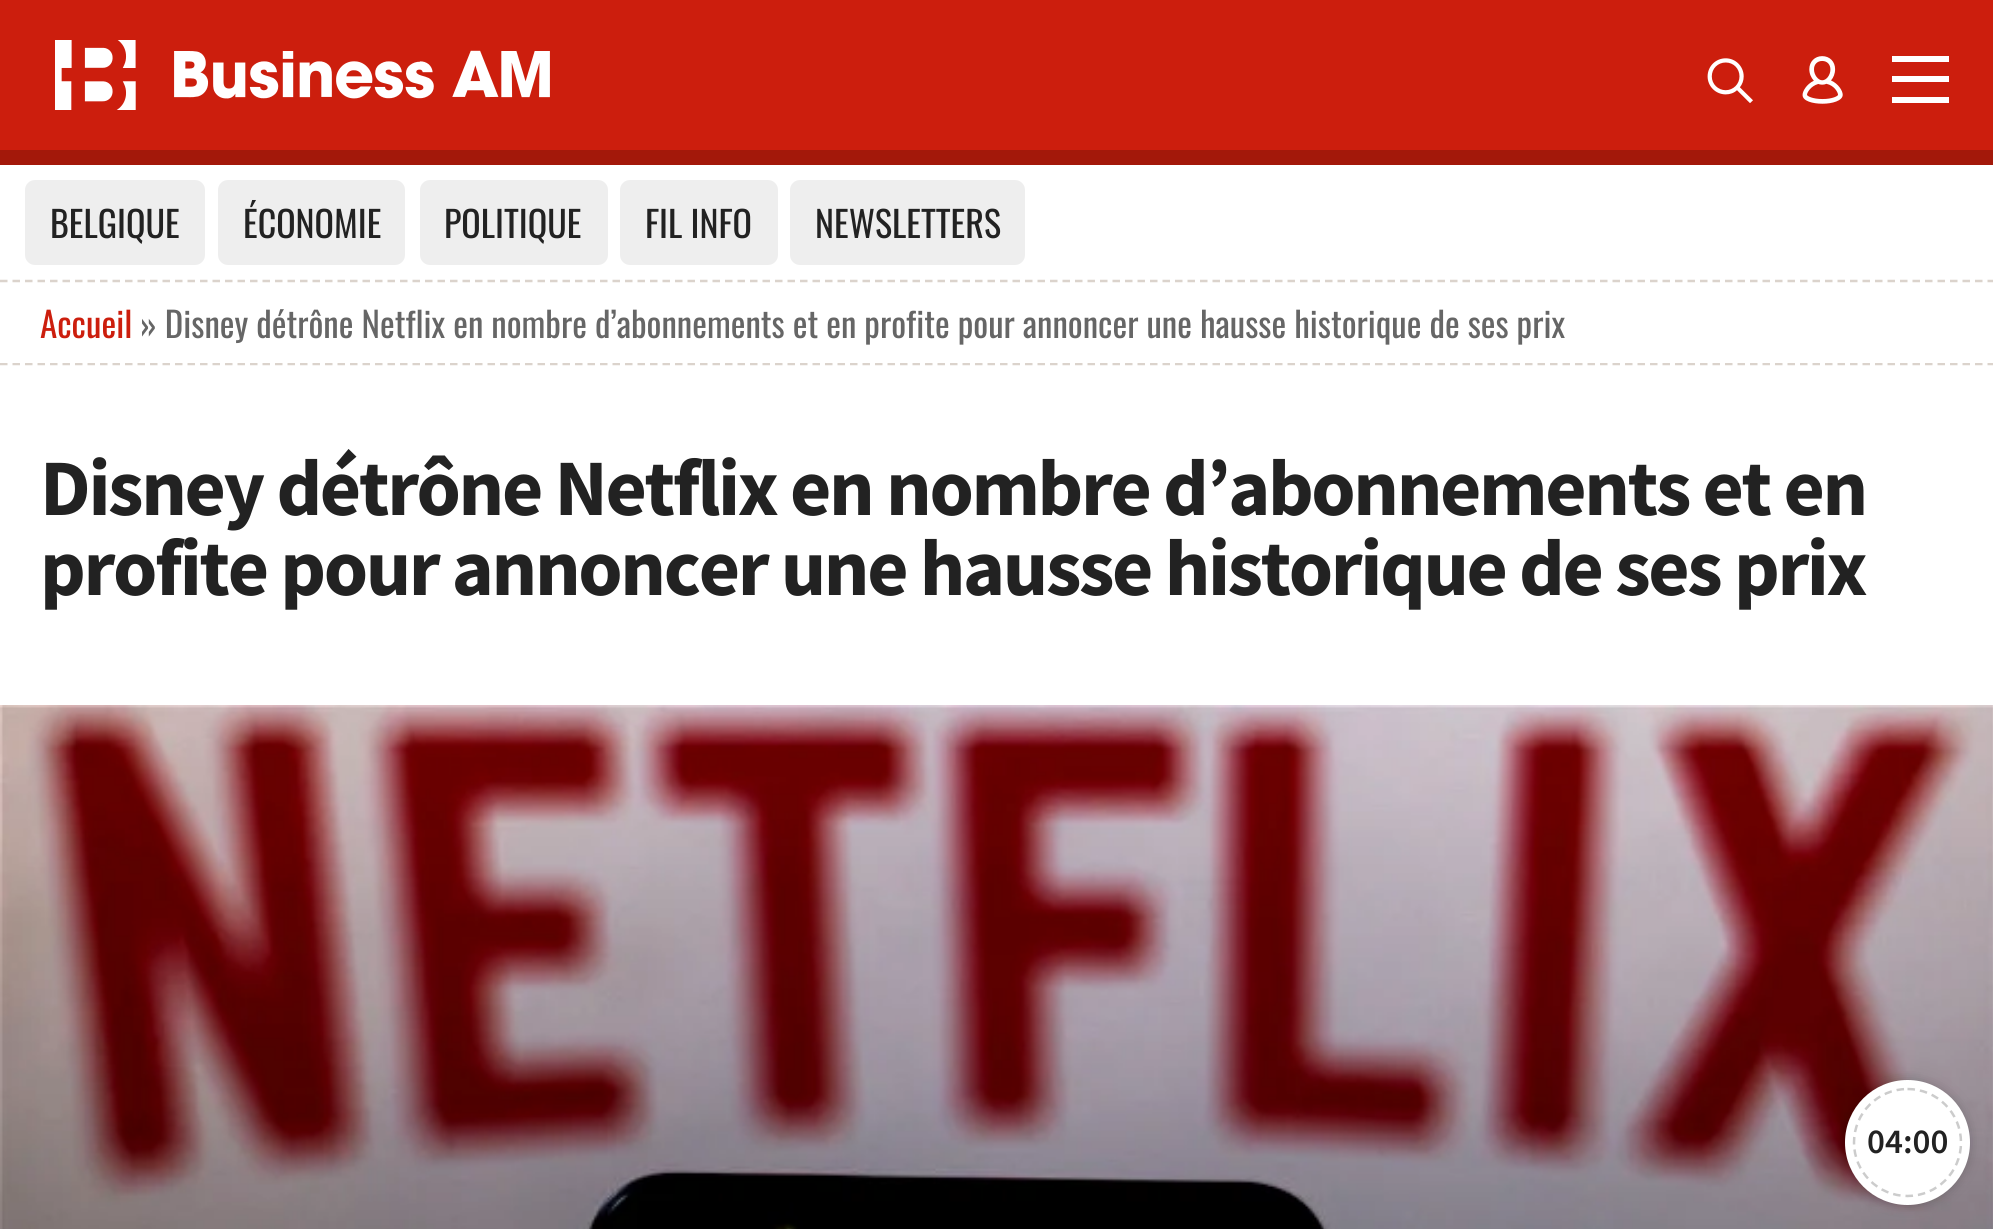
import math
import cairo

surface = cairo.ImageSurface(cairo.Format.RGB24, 1993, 1229)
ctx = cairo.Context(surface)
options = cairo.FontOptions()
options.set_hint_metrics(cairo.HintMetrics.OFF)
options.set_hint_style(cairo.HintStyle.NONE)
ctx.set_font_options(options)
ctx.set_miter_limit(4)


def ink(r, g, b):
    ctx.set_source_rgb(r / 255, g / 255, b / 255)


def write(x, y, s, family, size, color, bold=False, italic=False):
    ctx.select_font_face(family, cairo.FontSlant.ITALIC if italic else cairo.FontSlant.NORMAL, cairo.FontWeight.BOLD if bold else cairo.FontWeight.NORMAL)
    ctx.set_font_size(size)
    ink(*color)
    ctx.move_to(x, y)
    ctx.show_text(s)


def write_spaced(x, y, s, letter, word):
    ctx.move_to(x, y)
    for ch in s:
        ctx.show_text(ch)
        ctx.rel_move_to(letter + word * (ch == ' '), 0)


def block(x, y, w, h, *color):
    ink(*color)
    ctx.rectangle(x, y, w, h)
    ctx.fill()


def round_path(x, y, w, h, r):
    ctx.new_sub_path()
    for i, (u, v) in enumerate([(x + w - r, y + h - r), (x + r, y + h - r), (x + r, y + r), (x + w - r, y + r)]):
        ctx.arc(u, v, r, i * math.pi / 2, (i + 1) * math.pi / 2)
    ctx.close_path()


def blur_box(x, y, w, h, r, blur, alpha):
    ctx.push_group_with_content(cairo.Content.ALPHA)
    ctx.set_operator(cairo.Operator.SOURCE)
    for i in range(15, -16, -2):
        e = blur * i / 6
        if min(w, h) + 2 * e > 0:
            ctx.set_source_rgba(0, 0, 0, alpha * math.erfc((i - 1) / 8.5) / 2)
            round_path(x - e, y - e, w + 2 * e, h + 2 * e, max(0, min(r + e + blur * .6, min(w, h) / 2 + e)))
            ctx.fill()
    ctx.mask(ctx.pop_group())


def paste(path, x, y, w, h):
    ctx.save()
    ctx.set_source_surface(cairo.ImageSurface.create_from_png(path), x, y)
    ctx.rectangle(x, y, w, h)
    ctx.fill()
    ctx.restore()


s1 = dict(family="Oswald", size=36, color=(34, 34, 34))
s2 = dict(family="Oswald", size=35, color=(204, 30, 13))
s3 = dict(family="Oswald", size=35, color=(102, 102, 102))
s4 = dict(family="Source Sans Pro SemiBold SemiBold", size=35, color=(34, 34, 34))

ink(255, 255, 255)
ctx.paint()
block(0, 0, 1993, 150, 204, 30, 13)
paste("pic1.png", 55, 40, 495, 70)
paste("pic2.png", 1707, 58, 46, 45)
paste("pic3.png", 1802, 56, 41, 48)
ink(255, 255, 255)
ctx.new_path()
ctx.move_to(1892, 56)
ctx.line_to(1892, 62)
ctx.line_to(1949, 62)
ctx.line_to(1949, 56)
ctx.close_path()
ctx.move_to(1892, 76)
ctx.line_to(1892, 82)
ctx.line_to(1949, 82)
ctx.line_to(1949, 76)
ctx.close_path()
ctx.move_to(1892, 97)
ctx.line_to(1892, 103)
ctx.line_to(1949, 103)
ctx.line_to(1949, 97)
ctx.close_path()
ctx.fill()
block(0, 150, 1993, 15, 163, 24, 10)
ink(238, 238, 238)
round_path(25, 180, 180, 85, 10)
ctx.fill()
write(50, 238, "BELGIQUE", **s1)
ink(238, 238, 238)
round_path(218, 180, 187, 85, 10)
ctx.fill()
write(243, 238, "ÉCONOMIE", **s1)
ink(238, 238, 238)
round_path(420, 180, 188, 85, 10)
ctx.fill()
write(444, 238, "POLITIQUE", **s1)
ink(238, 238, 238)
round_path(620, 180, 158, 85, 10)
ctx.fill()
write(645, 238, "FIL INFO", **s1)
ink(238, 238, 238)
round_path(790, 180, 235, 85, 10)
ctx.fill()
write(815, 238, "NEWSLETTERS", **s1)
ctx.new_path()
ctx.move_to(0, 364)
ctx.line_to(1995, 364)
ink(219, 211, 204)
ctx.set_line_width(2.5)
ctx.set_dash([7.5, 5])
ctx.stroke()
block(0, 362, 1993, 1, 255, 255, 255)
ctx.new_path()
ctx.move_to(0, 281)
ctx.line_to(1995, 281)
ink(219, 211, 204)
ctx.stroke()
write(40, 338, "Accueil", **s2)
write(140, 338, "» Disney détrône Netflix en nombre d’abonnements et en profite pour annoncer une hausse historique de ses prix", **s3)
ctx.select_font_face("Source Sans Pro", cairo.FontSlant.NORMAL, cairo.FontWeight.BOLD)
ctx.set_font_size(80)
ink(34, 34, 34)
write_spaced(40, 515, "Disney détrône Netflix en nombre d’abonnements et en", -2.4, 0)
write_spaced(40, 595, "profite pour annoncer une hausse historique de ses prix", -2.4, 0)
paste("pic4.png", 0, 705, 1993, 524)
ink(0, 0, 0)
blur_box(1845, 1080, 125, 125, 62.5, 6, 0.2)
ink(255, 255, 255)
ctx.arc(1907.5, 1142.5, 62.5, 0, 2 * math.pi)
ctx.fill()
ctx.new_path()
ctx.move_to(1907.5, 1089)
ctx.curve_to(1937, 1089, 1961, 1113, 1961, 1142.5)
ctx.curve_to(1961, 1172, 1937, 1196, 1907.5, 1196)
ctx.curve_to(1878, 1196, 1854, 1172, 1854, 1142.5)
ctx.curve_to(1854, 1113, 1878, 1089, 1907.5, 1089)
ctx.close_path()
ink(204, 204, 204)
ctx.stroke()
write(1867, 1153, "04:00", **s4)
surface.write_to_png("screenshot.png")
